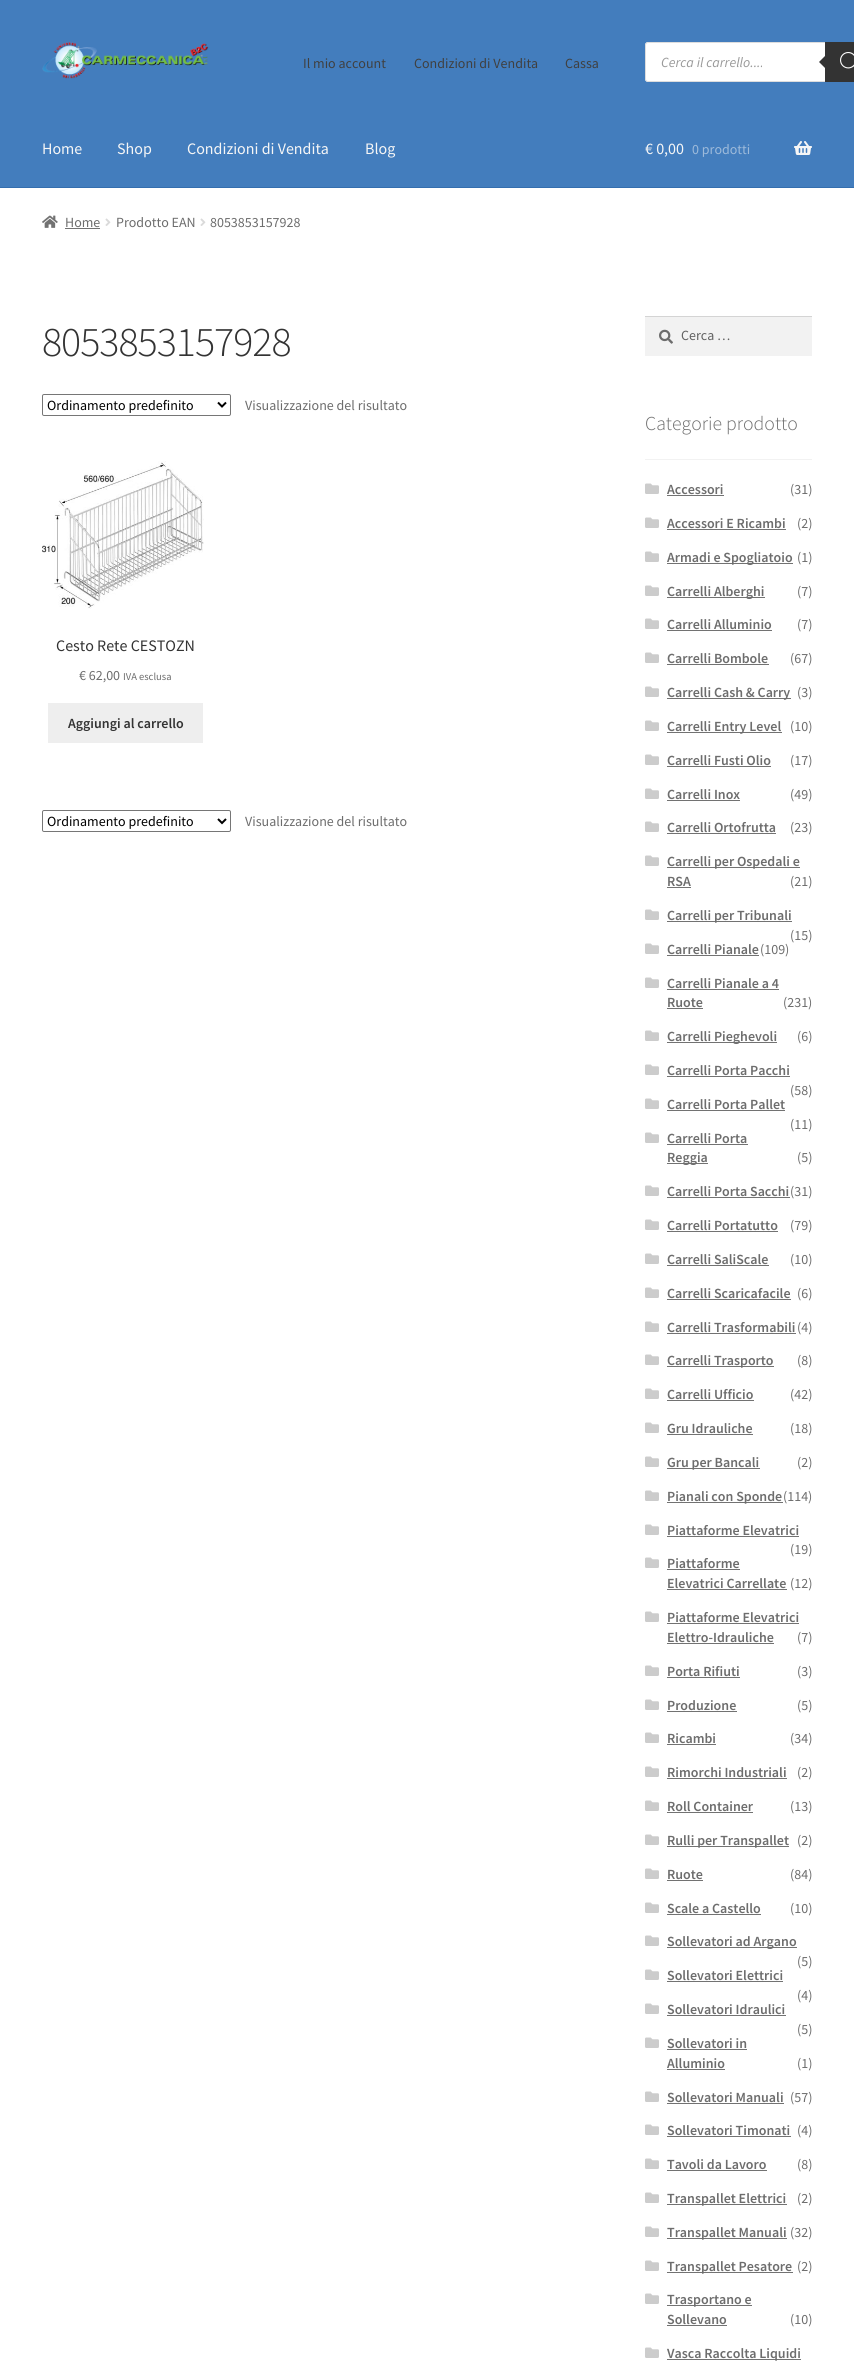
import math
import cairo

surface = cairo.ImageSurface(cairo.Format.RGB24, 854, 2366)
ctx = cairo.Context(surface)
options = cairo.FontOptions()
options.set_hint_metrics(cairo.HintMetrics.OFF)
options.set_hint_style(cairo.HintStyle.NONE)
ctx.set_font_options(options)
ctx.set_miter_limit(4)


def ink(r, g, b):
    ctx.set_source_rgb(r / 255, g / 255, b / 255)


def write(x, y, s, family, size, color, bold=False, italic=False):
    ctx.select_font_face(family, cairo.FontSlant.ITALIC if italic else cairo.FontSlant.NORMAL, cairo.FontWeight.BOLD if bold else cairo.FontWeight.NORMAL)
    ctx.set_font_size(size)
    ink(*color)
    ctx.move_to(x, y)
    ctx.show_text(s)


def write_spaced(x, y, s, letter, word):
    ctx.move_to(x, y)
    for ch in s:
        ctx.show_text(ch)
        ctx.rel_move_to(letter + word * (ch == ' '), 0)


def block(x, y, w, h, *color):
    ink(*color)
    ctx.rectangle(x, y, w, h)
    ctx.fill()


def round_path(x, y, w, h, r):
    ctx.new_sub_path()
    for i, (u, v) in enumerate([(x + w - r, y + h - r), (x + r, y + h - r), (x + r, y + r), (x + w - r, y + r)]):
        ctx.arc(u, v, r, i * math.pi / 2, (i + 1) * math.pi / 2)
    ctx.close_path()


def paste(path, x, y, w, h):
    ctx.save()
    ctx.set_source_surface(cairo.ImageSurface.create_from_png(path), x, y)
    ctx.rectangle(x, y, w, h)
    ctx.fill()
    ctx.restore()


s1 = dict(family="Source Sans Pro", size=14, color=(64, 64, 64))
s2 = dict(family="Source Sans Pro", size=14, color=(153, 153, 153), italic=True)
s3 = dict(family="Source Sans Pro", size=16, color=(246, 246, 246))
s4 = dict(family="Source Sans Pro", size=14, color=(157, 186, 218))
s5 = dict(family="Source Sans Pro", size=14, color=(109, 109, 109))
s6 = dict(family="Source Sans Pro", size=14, color=(0, 0, 0))
s7 = dict(family="Source Sans Pro", size=16, color=(51, 51, 51))
s8 = dict(family="Source Sans Pro", size=10.5, color=(109, 109, 109))
s9 = dict(family="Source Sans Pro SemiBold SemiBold", size=14, color=(51, 51, 51))
s10 = dict(family="Source Sans Pro", size=14, color=(97, 97, 97))
s11 = dict(family="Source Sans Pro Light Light", size=19.75, color=(109, 109, 109))
s12 = dict(family="Source Sans Pro SemiBold SemiBold", size=14, color=(109, 109, 109))

ink(255, 255, 255)
ctx.paint()
block(0, 0, 854, 187, 67, 125, 189)
block(0, 187, 854, 1, 52, 110, 174)
paste("pic1.png", 42, 42, 167, 37)
write(303, 68, "Il mio account", **s1)
write(414, 68, "Condizioni di Vendita", **s1)
write(565, 68, "Cassa", **s1)
ink(255, 255, 255)
ctx.new_path()
ctx.move_to(648, 42)
ctx.line_to(854, 42)
ctx.line_to(854, 82)
ctx.line_to(648, 82)
ctx.curve_to(646.5, 82, 645, 80.5, 645, 79)
ctx.line_to(645, 45)
ctx.curve_to(645, 43.5, 646.5, 42, 648, 42)
ctx.close_path()
ctx.fill()
round_path(645.5, 42.5, 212, 39, 2.5)
ink(221, 221, 221)
ctx.set_line_width(1)
ctx.stroke()
write(661, 67, "Cerca il carrello....", **s2)
block(825, 42, 29, 40, 51, 51, 51)
ctx.new_path()
ctx.move_to(827, 54)
ctx.line_to(827, 70)
ctx.line_to(819, 62)
ctx.close_path()
ctx.fill()
paste("pic2.png", 840, 52, 14, 17)
write(42, 154, "Home", **s3)
write(117, 154, "Shop", **s3)
write(187, 154, "Condizioni di Vendita", **s3)
write(365, 154, "Blog", **s3)
write(645, 154, "€ 0,00", **s3)
write(692, 154, "0 prodotti", **s4)
paste("pic3.png", 794, 141, 18, 14)
paste("pic4.png", 42, 215, 16, 13)
write(65, 227, "Home", **s5)
block(65, 228, 35, 1, 114, 114, 114)
paste("pic5.png", 105, 218, 6, 8)
write(116, 227, "Prodotto EAN", **s5)
paste("pic5.png", 200, 218, 6, 8)
write(210, 227, "8053853157928", **s5)
ctx.select_font_face("Source Sans Pro Light Light")
ctx.set_font_size(42)
ink(51, 51, 51)
write_spaced(42, 356, "8053853157928", -1, 0)
round_path(42.5, 394.5, 188, 21, 1.5)
ink(118, 118, 118)
ctx.stroke()
ctx.new_path()
ctx.move_to(218, 402.5)
ctx.line_to(222, 406.5)
ctx.line_to(226, 402.5)
ink(0, 0, 0)
ctx.set_line_width(2)
ctx.stroke()
write(47, 410, "Ordinamento predefinito", **s6)
write(245, 410, "Visualizzazione del risultato", **s5)
paste("pic6.png", 42, 461, 162, 148)
write(56, 651, "Cesto Rete CESTOZN", **s7)
write(79, 680, "€ 62,00", **s5)
write(123, 680, "IVA esclusa", **s8)
block(48, 703, 155, 40, 238, 238, 238)
write(68, 728, "Aggiungi al carrello", **s9)
round_path(42.5, 810.5, 188, 21, 1.5)
ink(118, 118, 118)
ctx.set_line_width(1)
ctx.stroke()
ctx.new_path()
ctx.move_to(218, 819)
ctx.line_to(222, 823)
ctx.line_to(226, 819)
ink(0, 0, 0)
ctx.set_line_width(2)
ctx.stroke()
write(47, 826, "Ordinamento predefinito", **s6)
write(245, 826, "Visualizzazione del risultato", **s5)
block(645, 317, 167, 39, 242, 242, 242)
paste("pic7.png", 659, 329, 14, 15)
block(645, 316, 167, 1, 212, 212, 212)
write(681, 340, "Cerca …", **s10)
block(645, 459, 167, 1, 242, 242, 242)
write(645, 430, "Categorie prodotto", **s11)
paste("pic8.png", 645, 483, 14, 11)
write(667, 494, "Accessori", **s12)
block(667, 495, 57, 1, 114, 114, 114)
write(790, 494, "(31)", **s5)
paste("pic8.png", 645, 517, 14, 11)
write(667, 528, "Accessori E Ricambi", **s12)
block(667, 529, 119, 1, 114, 114, 114)
write(797, 528, "(2)", **s5)
paste("pic8.png", 645, 551, 14, 11)
block(667, 563, 126, 1, 114, 114, 114)
write(667, 562, "Armadi e Spogliatoio", **s12)
write(797, 562, "(1)", **s5)
paste("pic8.png", 645, 585, 14, 11)
block(667, 597, 98, 1, 114, 114, 114)
write(667, 596, "Carrelli Alberghi", **s12)
write(797, 596, "(7)", **s5)
paste("pic8.png", 645, 618, 14, 11)
write(667, 629, "Carrelli Alluminio", **s12)
block(667, 630, 105, 1, 114, 114, 114)
write(797, 629, "(7)", **s5)
paste("pic8.png", 645, 652, 14, 11)
write(667, 663, "Carrelli Bombole", **s12)
block(667, 664, 102, 1, 114, 114, 114)
write(790, 663, "(67)", **s5)
paste("pic8.png", 645, 686, 14, 11)
block(667, 698, 124, 1, 114, 114, 114)
write(667, 697, "Carrelli Cash & Carry", **s12)
write(797, 697, "(3)", **s5)
paste("pic8.png", 645, 720, 14, 11)
block(667, 732, 115, 1, 114, 114, 114)
write(667, 731, "Carrelli Entry Level", **s12)
write(790, 731, "(10)", **s5)
paste("pic8.png", 645, 754, 14, 11)
write(667, 765, "Carrelli Fusti Olio", **s12)
block(667, 766, 104, 1, 114, 114, 114)
write(790, 765, "(17)", **s5)
paste("pic8.png", 645, 788, 14, 11)
write(667, 799, "Carrelli Inox", **s12)
block(667, 800, 73, 1, 114, 114, 114)
write(790, 799, "(49)", **s5)
paste("pic8.png", 645, 821, 14, 11)
write(667, 832, "Carrelli Ortofrutta", **s12)
block(667, 833, 109, 1, 114, 114, 114)
write(790, 832, "(23)", **s5)
paste("pic8.png", 645, 855, 14, 11)
block(667, 867, 133, 1, 114, 114, 114)
write(667, 866, "Carrelli per Ospedali e", **s12)
write(667, 886, "RSA", **s12)
block(667, 887, 24, 1, 114, 114, 114)
write(790, 886, "(21)", **s5)
paste("pic8.png", 645, 909, 14, 11)
block(667, 921, 125, 1, 114, 114, 114)
write(667, 920, "Carrelli per Tribunali", **s12)
write(790, 940, "(15)", **s5)
paste("pic8.png", 645, 943, 14, 11)
write(667, 954, "Carrelli Pianale", **s12)
block(667, 955, 92, 1, 114, 114, 114)
write(760, 954, "(109)", **s5)
paste("pic8.png", 645, 977, 14, 11)
write(667, 988, "Carrelli Pianale a 4", **s12)
block(667, 989, 112, 1, 114, 114, 114)
write(667, 1007, "Ruote", **s12)
block(667, 1008, 36, 1, 114, 114, 114)
write(783, 1007, "(231)", **s5)
paste("pic8.png", 645, 1030, 14, 11)
block(667, 1042, 110, 1, 114, 114, 114)
write(667, 1041, "Carrelli Pieghevoli", **s12)
write(797, 1041, "(6)", **s5)
paste("pic8.png", 645, 1064, 14, 11)
write(667, 1075, "Carrelli Porta Pacchi", **s12)
block(667, 1076, 123, 1, 114, 114, 114)
write(790, 1095, "(58)", **s5)
paste("pic8.png", 645, 1098, 14, 11)
write(667, 1109, "Carrelli Porta Pallet", **s12)
block(667, 1110, 118, 1, 114, 114, 114)
write(790, 1129, "(11)", **s5)
paste("pic8.png", 645, 1132, 14, 11)
write(667, 1143, "Carrelli Porta", **s12)
block(667, 1144, 81, 1, 114, 114, 114)
block(667, 1163, 41, 1, 114, 114, 114)
write(667, 1162, "Reggia", **s12)
write(797, 1162, "(5)", **s5)
paste("pic8.png", 645, 1185, 14, 11)
write(667, 1196, "Carrelli Porta Sacchi", **s12)
block(667, 1197, 123, 1, 114, 114, 114)
write(790, 1196, "(31)", **s5)
paste("pic8.png", 645, 1219, 14, 11)
write(667, 1230, "Carrelli Portatutto", **s12)
block(667, 1231, 111, 1, 114, 114, 114)
write(790, 1230, "(79)", **s5)
paste("pic8.png", 645, 1253, 14, 11)
write(667, 1264, "Carrelli SaliScale", **s12)
block(667, 1265, 102, 1, 114, 114, 114)
write(790, 1264, "(10)", **s5)
paste("pic8.png", 645, 1287, 14, 11)
write(667, 1298, "Carrelli Scaricafacile", **s12)
block(667, 1299, 124, 1, 114, 114, 114)
write(797, 1298, "(6)", **s5)
paste("pic8.png", 645, 1321, 14, 11)
write(667, 1332, "Carrelli Trasformabili", **s12)
block(667, 1333, 129, 1, 114, 114, 114)
write(797, 1332, "(4)", **s5)
paste("pic8.png", 645, 1354, 14, 11)
block(667, 1366, 107, 1, 114, 114, 114)
write(667, 1365, "Carrelli Trasporto", **s12)
write(797, 1365, "(8)", **s5)
paste("pic8.png", 645, 1388, 14, 11)
write(667, 1399, "Carrelli Ufficio", **s12)
block(667, 1400, 87, 1, 114, 114, 114)
write(790, 1399, "(42)", **s5)
paste("pic8.png", 645, 1422, 14, 11)
write(667, 1433, "Gru Idrauliche", **s12)
block(667, 1434, 86, 1, 114, 114, 114)
write(790, 1433, "(18)", **s5)
paste("pic8.png", 645, 1456, 14, 11)
block(667, 1468, 93, 1, 114, 114, 114)
write(667, 1467, "Gru per Bancali", **s12)
write(797, 1467, "(2)", **s5)
paste("pic8.png", 645, 1490, 14, 11)
block(667, 1502, 116, 1, 114, 114, 114)
write(667, 1501, "Pianali con Sponde", **s12)
write(783, 1501, "(114)", **s5)
paste("pic8.png", 645, 1524, 14, 11)
write(667, 1535, "Piattaforme Elevatrici", **s12)
block(667, 1536, 132, 1, 114, 114, 114)
write(790, 1554, "(19)", **s5)
paste("pic8.png", 645, 1557, 14, 11)
write(667, 1568, "Piattaforme", **s12)
block(667, 1569, 73, 1, 114, 114, 114)
write(667, 1588, "Elevatrici Carrellate", **s12)
block(667, 1589, 120, 1, 114, 114, 114)
write(790, 1588, "(12)", **s5)
paste("pic8.png", 645, 1611, 14, 11)
write(667, 1622, "Piattaforme Elevatrici", **s12)
block(667, 1623, 132, 1, 114, 114, 114)
write(667, 1642, "Elettro-Idrauliche", **s12)
block(667, 1643, 107, 1, 114, 114, 114)
write(797, 1642, "(7)", **s5)
paste("pic8.png", 645, 1665, 14, 11)
write(667, 1676, "Porta Rifiuti", **s12)
block(667, 1677, 73, 1, 114, 114, 114)
write(797, 1676, "(3)", **s5)
paste("pic8.png", 645, 1699, 14, 11)
write(667, 1710, "Produzione", **s12)
block(667, 1711, 70, 1, 114, 114, 114)
write(797, 1710, "(5)", **s5)
paste("pic8.png", 645, 1732, 14, 11)
write(667, 1743, "Ricambi", **s12)
block(667, 1744, 49, 1, 114, 114, 114)
write(790, 1743, "(34)", **s5)
paste("pic8.png", 645, 1766, 14, 11)
write(667, 1777, "Rimorchi Industriali", **s12)
block(667, 1778, 120, 1, 114, 114, 114)
write(797, 1777, "(2)", **s5)
paste("pic8.png", 645, 1800, 14, 11)
write(667, 1811, "Roll Container", **s12)
block(667, 1812, 86, 1, 114, 114, 114)
write(790, 1811, "(13)", **s5)
paste("pic8.png", 645, 1834, 14, 11)
block(667, 1846, 122, 1, 114, 114, 114)
write(667, 1845, "Rulli per Transpallet", **s12)
write(797, 1845, "(2)", **s5)
paste("pic8.png", 645, 1868, 14, 11)
write(667, 1879, "Ruote", **s12)
block(667, 1880, 36, 1, 114, 114, 114)
write(790, 1879, "(84)", **s5)
paste("pic8.png", 645, 1902, 14, 11)
write(667, 1913, "Scale a Castello", **s12)
block(667, 1914, 94, 1, 114, 114, 114)
write(790, 1913, "(10)", **s5)
paste("pic8.png", 645, 1935, 14, 11)
block(667, 1947, 130, 1, 114, 114, 114)
write(667, 1946, "Sollevatori ad Argano", **s12)
write(797, 1966, "(5)", **s5)
paste("pic8.png", 645, 1969, 14, 11)
write(667, 1980, "Sollevatori Elettrici", **s12)
block(667, 1981, 116, 1, 114, 114, 114)
write(797, 2000, "(4)", **s5)
paste("pic8.png", 645, 2003, 14, 11)
write(667, 2014, "Sollevatori Idraulici", **s12)
block(667, 2015, 119, 1, 114, 114, 114)
write(797, 2034, "(5)", **s5)
paste("pic8.png", 645, 2037, 14, 11)
write(667, 2048, "Sollevatori in", **s12)
block(667, 2049, 80, 1, 114, 114, 114)
write(667, 2068, "Alluminio", **s12)
block(667, 2069, 58, 1, 114, 114, 114)
write(797, 2068, "(1)", **s5)
paste("pic8.png", 645, 2091, 14, 11)
write(667, 2102, "Sollevatori Manuali", **s12)
block(667, 2103, 117, 1, 114, 114, 114)
write(790, 2102, "(57)", **s5)
paste("pic8.png", 645, 2124, 14, 11)
write(667, 2135, "Sollevatori Timonati", **s12)
block(667, 2136, 124, 1, 114, 114, 114)
write(797, 2135, "(4)", **s5)
paste("pic8.png", 645, 2158, 14, 11)
write(667, 2169, "Tavoli da Lavoro", **s12)
block(667, 2170, 100, 1, 114, 114, 114)
write(797, 2169, "(8)", **s5)
paste("pic8.png", 645, 2192, 14, 11)
block(667, 2204, 120, 1, 114, 114, 114)
write(667, 2203, "Transpallet Elettrici", **s12)
write(797, 2203, "(2)", **s5)
paste("pic8.png", 645, 2226, 14, 11)
block(667, 2238, 120, 1, 114, 114, 114)
write(667, 2237, "Transpallet Manuali", **s12)
write(790, 2237, "(32)", **s5)
paste("pic8.png", 645, 2260, 14, 11)
block(667, 2272, 126, 1, 114, 114, 114)
write(667, 2271, "Transpallet Pesatore", **s12)
write(797, 2271, "(2)", **s5)
paste("pic8.png", 645, 2293, 14, 11)
block(667, 2305, 85, 1, 114, 114, 114)
write(667, 2304, "Trasportano e", **s12)
write(667, 2324, "Sollevano", **s12)
block(667, 2325, 60, 1, 114, 114, 114)
write(790, 2324, "(10)", **s5)
paste("pic8.png", 645, 2347, 14, 11)
block(667, 2359, 134, 1, 114, 114, 114)
write(667, 2358, "Vasca Raccolta Liquidi", **s12)
surface.write_to_png("screenshot.png")
